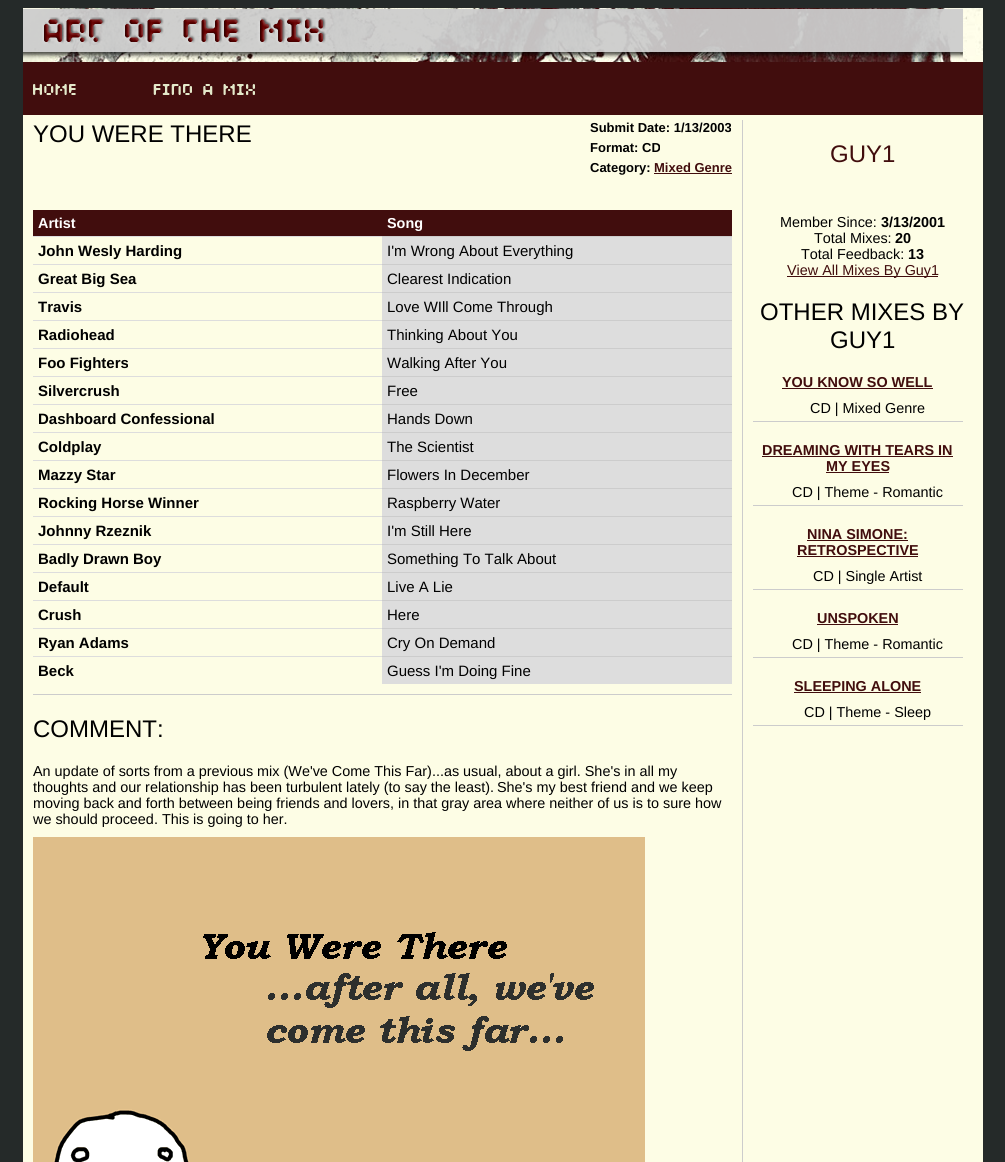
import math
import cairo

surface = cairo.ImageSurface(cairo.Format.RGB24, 1005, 1162)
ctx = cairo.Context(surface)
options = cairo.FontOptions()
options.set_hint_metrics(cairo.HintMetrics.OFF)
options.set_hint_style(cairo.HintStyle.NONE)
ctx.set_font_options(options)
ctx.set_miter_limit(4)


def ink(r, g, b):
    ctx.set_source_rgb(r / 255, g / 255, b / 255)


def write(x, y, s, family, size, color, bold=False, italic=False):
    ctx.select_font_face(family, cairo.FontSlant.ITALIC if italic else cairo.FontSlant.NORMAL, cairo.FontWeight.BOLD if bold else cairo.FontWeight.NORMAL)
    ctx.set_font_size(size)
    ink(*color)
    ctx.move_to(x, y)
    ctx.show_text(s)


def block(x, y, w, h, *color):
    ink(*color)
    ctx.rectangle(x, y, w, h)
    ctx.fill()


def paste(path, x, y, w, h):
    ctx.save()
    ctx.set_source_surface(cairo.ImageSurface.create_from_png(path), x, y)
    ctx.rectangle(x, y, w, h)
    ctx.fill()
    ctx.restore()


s1 = dict(family="Liberation Sans", size=24, color=(0, 0, 0))
s2 = dict(family="Liberation Sans", size=13, color=(0, 0, 0), bold=True)
s3 = dict(family="Liberation Sans", size=13, color=(65, 13, 13), bold=True)
s4 = dict(family="Liberation Sans", size=14.4, color=(255, 255, 255), bold=True)
s5 = dict(family="Liberation Sans", size=15, color=(0, 0, 0), bold=True)
s6 = dict(family="Liberation Sans", size=15, color=(0, 0, 0))
s7 = dict(family="Liberation Sans", size=14.4, color=(0, 0, 0))
s8 = dict(family="Liberation Sans", size=24, color=(65, 13, 13))
s9 = dict(family="Liberation Sans", size=14.4, color=(0, 0, 0), bold=True)
s10 = dict(family="Liberation Sans", size=14.4, color=(65, 13, 13))
s11 = dict(family="Liberation Sans", size=14.4, color=(65, 13, 13), bold=True)

ink(37, 42, 41)
ctx.paint()
block(23, 115, 960, 1047, 253, 253, 229)
paste("pic1.png", 23, 8, 960, 54)
paste("pic2.png", 23, 8, 940, 51)
block(23, 62, 960, 53, 65, 13, 13)
paste("pic3.png", 33, 84, 43, 11)
paste("pic4.png", 153, 84, 102, 11)
block(742, 120, 1, 1042, 204, 204, 204)
write(33, 142, "YOU WERE THERE", **s1)
write(590, 132, "Submit Date: 1/13/2003", **s2)
write(590, 152, "Format: CD", **s2)
write(590, 172, "Category:", **s2)
write(654, 172, "Mixed Genre", **s3)
block(654, 173, 78, 1, 65, 13, 13)
block(33, 210, 699, 26, 65, 13, 13)
write(38, 228, "Artist", **s4)
write(387, 228, "Song", **s4)
block(33, 236, 349, 1, 221, 221, 221)
write(38, 256, "John Wesly Harding", **s5)
block(382, 237, 350, 27, 221, 221, 221)
block(382, 236, 350, 1, 204, 204, 204)
write(387, 256, "I'm Wrong About Everything", **s6)
block(33, 264, 349, 1, 221, 221, 221)
write(38, 284, "Great Big Sea", **s5)
block(382, 265, 350, 27, 221, 221, 221)
block(382, 264, 350, 1, 204, 204, 204)
write(387, 284, "Clearest Indication", **s6)
block(33, 292, 349, 1, 221, 221, 221)
write(38, 312, "Travis", **s5)
block(382, 293, 350, 27, 221, 221, 221)
block(382, 292, 350, 1, 204, 204, 204)
write(387, 312, "Love WIll Come Through", **s6)
block(33, 320, 349, 1, 221, 221, 221)
write(38, 340, "Radiohead", **s5)
block(382, 321, 350, 27, 221, 221, 221)
block(382, 320, 350, 1, 204, 204, 204)
write(387, 340, "Thinking About You", **s6)
block(33, 348, 349, 1, 221, 221, 221)
write(38, 368, "Foo Fighters", **s5)
block(382, 349, 350, 27, 221, 221, 221)
block(382, 348, 350, 1, 204, 204, 204)
write(387, 368, "Walking After You", **s6)
block(33, 376, 349, 1, 221, 221, 221)
write(38, 396, "Silvercrush", **s5)
block(382, 377, 350, 27, 221, 221, 221)
block(382, 376, 350, 1, 204, 204, 204)
write(387, 396, "Free", **s6)
block(33, 404, 349, 1, 221, 221, 221)
write(38, 424, "Dashboard Confessional", **s5)
block(382, 405, 350, 27, 221, 221, 221)
block(382, 404, 350, 1, 204, 204, 204)
write(387, 424, "Hands Down", **s6)
block(33, 432, 349, 1, 221, 221, 221)
write(38, 452, "Coldplay", **s5)
block(382, 433, 350, 27, 221, 221, 221)
block(382, 432, 350, 1, 204, 204, 204)
write(387, 452, "The Scientist", **s6)
block(33, 460, 349, 1, 221, 221, 221)
write(38, 480, "Mazzy Star", **s5)
block(382, 461, 350, 27, 221, 221, 221)
block(382, 460, 350, 1, 204, 204, 204)
write(387, 480, "Flowers In December", **s6)
block(33, 488, 349, 1, 221, 221, 221)
write(38, 508, "Rocking Horse Winner", **s5)
block(382, 489, 350, 27, 221, 221, 221)
block(382, 488, 350, 1, 204, 204, 204)
write(387, 508, "Raspberry Water", **s6)
block(33, 516, 349, 1, 221, 221, 221)
write(38, 536, "Johnny Rzeznik", **s5)
block(382, 517, 350, 27, 221, 221, 221)
block(382, 516, 350, 1, 204, 204, 204)
write(387, 536, "I'm Still Here", **s6)
block(33, 544, 349, 1, 221, 221, 221)
write(38, 564, "Badly Drawn Boy", **s5)
block(382, 545, 350, 27, 221, 221, 221)
block(382, 544, 350, 1, 204, 204, 204)
write(387, 564, "Something To Talk About", **s6)
block(33, 572, 349, 1, 221, 221, 221)
write(38, 592, "Default", **s5)
block(382, 573, 350, 27, 221, 221, 221)
block(382, 572, 350, 1, 204, 204, 204)
write(387, 592, "Live A Lie", **s6)
block(33, 600, 349, 1, 221, 221, 221)
write(38, 620, "Crush", **s5)
block(382, 601, 350, 27, 221, 221, 221)
block(382, 600, 350, 1, 204, 204, 204)
write(387, 620, "Here", **s6)
block(33, 628, 349, 1, 221, 221, 221)
write(38, 648, "Ryan Adams", **s5)
block(382, 629, 350, 27, 221, 221, 221)
block(382, 628, 350, 1, 204, 204, 204)
write(387, 648, "Cry On Demand", **s6)
block(33, 656, 349, 1, 221, 221, 221)
write(38, 676, "Beck", **s5)
block(382, 657, 350, 27, 221, 221, 221)
block(382, 656, 350, 1, 204, 204, 204)
write(387, 676, "Guess I'm Doing Fine", **s6)
block(33, 694, 699, 1, 204, 204, 204)
write(33, 737, "COMMENT:", **s1)
write(33, 776, "An update of sorts from a previous mix (We've Come This Far)...as usual, about a girl. She's in all my", **s7)
write(33, 792, "thoughts and our relationship has been turbulent lately (to say the least).", **s7)
write(497, 792, "She's my best friend and we keep", **s7)
write(33, 808, "moving back and forth between being friends and lovers, in that gray area where neither of us is to sure how", **s7)
write(33, 824, "we should proceed. This is going to her.", **s7)
paste("pic5.png", 33, 837, 612, 325)
write(830, 162, "GUY1", **s8)
write(780, 227, "Member Since:", **s7)
write(881, 227, "3/13/2001", **s9)
write(814, 243, "Total Mixes:", **s7)
write(895, 243, "20", **s9)
write(801, 259, "Total Feedback:", **s7)
write(908, 259, "13", **s9)
block(787, 276, 151, 1, 65, 13, 13)
write(787, 275, "View All Mixes By Guy1", **s10)
write(760, 320, "OTHER MIXES BY", **s1)
write(830, 348, "GUY1", **s1)
block(753, 421, 210, 1, 204, 204, 204)
write(782, 387, "YOU KNOW SO WELL", **s11)
block(782, 388, 151, 1, 65, 13, 13)
write(810, 413, "CD | Mixed Genre", **s7)
block(753, 505, 210, 1, 204, 204, 204)
write(762, 455, "DREAMING WITH TEARS IN", **s11)
block(762, 456, 191, 1, 65, 13, 13)
write(826, 471, "MY EYES", **s11)
block(826, 472, 63, 1, 65, 13, 13)
write(792, 497, "CD | Theme - Romantic", **s7)
block(753, 589, 210, 1, 204, 204, 204)
write(807, 539, "NINA SIMONE:", **s11)
block(807, 540, 101, 1, 65, 13, 13)
write(797, 555, "RETROSPECTIVE", **s11)
block(797, 556, 121, 1, 65, 13, 13)
write(813, 581, "CD | Single Artist", **s7)
block(753, 657, 210, 1, 204, 204, 204)
write(817, 623, "UNSPOKEN", **s11)
block(817, 624, 81, 1, 65, 13, 13)
write(792, 649, "CD | Theme - Romantic", **s7)
block(753, 725, 210, 1, 204, 204, 204)
write(794, 691, "SLEEPING ALONE", **s11)
block(794, 692, 127, 1, 65, 13, 13)
write(804, 717, "CD | Theme - Sleep", **s7)
surface.write_to_png("screenshot.png")
